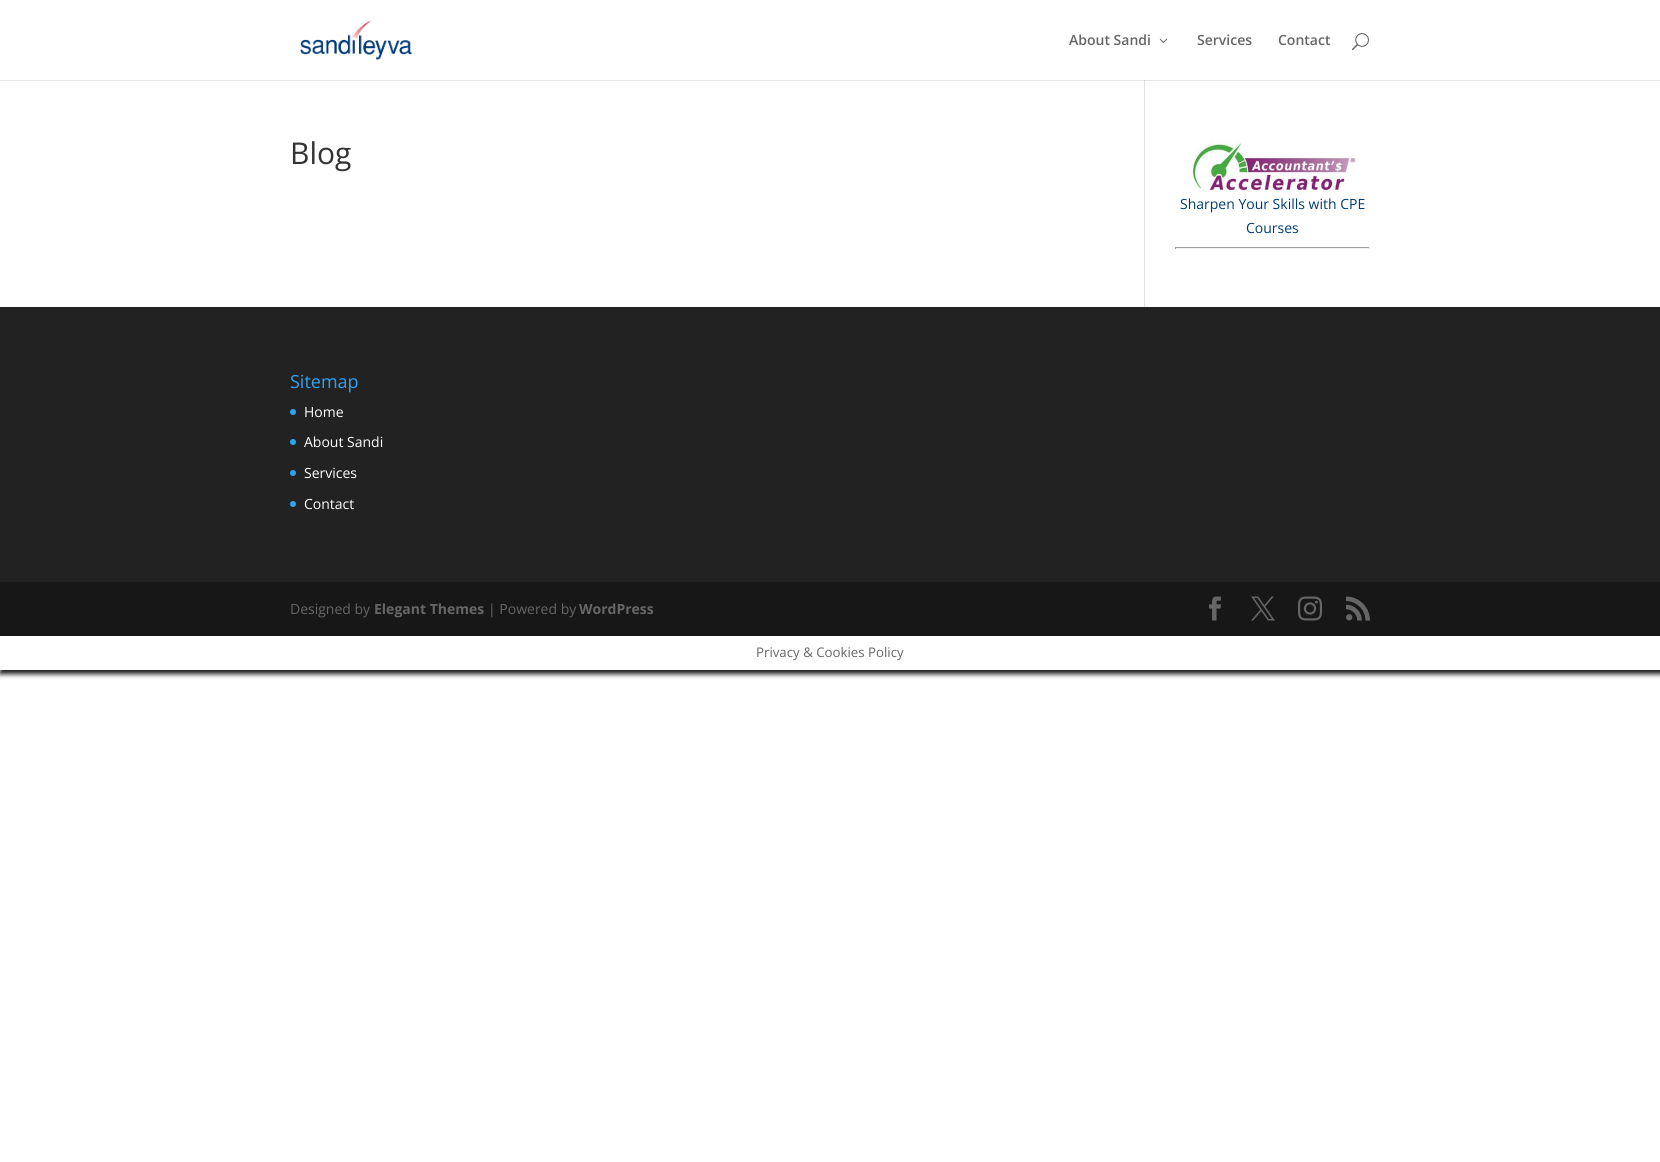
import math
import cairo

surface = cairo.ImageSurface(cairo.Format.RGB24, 1660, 1162)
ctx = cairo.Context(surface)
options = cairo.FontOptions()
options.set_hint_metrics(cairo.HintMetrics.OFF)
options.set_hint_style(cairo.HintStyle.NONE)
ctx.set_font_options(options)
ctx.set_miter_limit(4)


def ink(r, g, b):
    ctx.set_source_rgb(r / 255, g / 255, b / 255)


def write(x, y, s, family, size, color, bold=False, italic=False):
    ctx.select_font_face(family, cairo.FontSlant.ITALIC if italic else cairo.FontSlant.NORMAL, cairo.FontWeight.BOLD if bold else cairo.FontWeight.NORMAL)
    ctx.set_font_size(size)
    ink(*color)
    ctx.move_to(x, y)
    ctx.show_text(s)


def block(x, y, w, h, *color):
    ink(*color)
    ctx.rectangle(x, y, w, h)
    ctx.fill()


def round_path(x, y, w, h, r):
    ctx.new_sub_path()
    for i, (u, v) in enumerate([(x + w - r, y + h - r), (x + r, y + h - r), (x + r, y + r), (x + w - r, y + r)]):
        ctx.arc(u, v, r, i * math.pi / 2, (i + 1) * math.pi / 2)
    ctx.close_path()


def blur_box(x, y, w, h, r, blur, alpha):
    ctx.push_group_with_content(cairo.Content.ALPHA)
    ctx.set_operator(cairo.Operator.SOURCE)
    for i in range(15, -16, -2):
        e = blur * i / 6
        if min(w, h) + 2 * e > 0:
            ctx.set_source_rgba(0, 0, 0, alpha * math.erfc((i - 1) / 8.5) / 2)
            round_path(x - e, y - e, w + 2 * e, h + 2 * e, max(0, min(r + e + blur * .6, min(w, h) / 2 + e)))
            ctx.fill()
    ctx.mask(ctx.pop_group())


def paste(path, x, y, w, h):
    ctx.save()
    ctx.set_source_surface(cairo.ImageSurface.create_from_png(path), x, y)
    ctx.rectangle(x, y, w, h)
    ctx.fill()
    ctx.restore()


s1 = dict(family="Open Sans SemiBold", size=14, color=(102, 102, 102))
s2 = dict(family="Open Sans", size=30, color=(51, 51, 51))
s3 = dict(family="Open Sans", size=14, color=(0, 59, 120))
s4 = dict(family="Open Sans", size=18, color=(46, 163, 242))
s5 = dict(family="Open Sans", size=14, color=(255, 255, 255))
s6 = dict(family="Open Sans", size=14, color=(102, 102, 102))
s7 = dict(family="Open Sans", size=14, color=(102, 102, 102), bold=True)
s8 = dict(family="Open Sans", size=13.25, color=(102, 102, 102))

ink(255, 255, 255)
ctx.paint()
block(0, 80, 1660, 1, 230, 230, 230)
paste("pic1.png", 300, 20, 112, 40)
write(1069, 45, "About Sandi", **s1)
paste("pic2.png", 1159, 38, 9, 5)
write(1197, 45, "Services", **s1)
write(1278, 45, "Contact", **s1)
paste("pic3.png", 1352, 33, 17, 18)
block(1144, 80, 1, 227, 226, 226, 226)
block(1144, 80, 1, 1, 203, 203, 203)
write(290, 164, "Blog", **s2)
paste("pic4.png", 1185, 138, 173, 54)
write(1180, 209, "Sharpen Your Skills with CPE", **s3)
write(1246, 233, "Courses", **s3)
block(1175, 247, 195, 1, 159, 159, 159)
block(1369, 247, 1, 2, 238, 238, 238)
block(1175, 248, 195, 1, 238, 238, 238)
block(1175, 247, 1, 2, 159, 159, 159)
block(0, 307, 1660, 275, 34, 34, 34)
write(290, 388, "Sitemap", **s4)
ctx.new_path()
ctx.arc(293, 412, 3, 0, 2 * math.pi)
ctx.fill()
write(304, 417, "Home", **s5)
ink(46, 163, 242)
ctx.new_path()
ctx.arc(293, 442, 3, 0, 2 * math.pi)
ctx.fill()
write(304, 447, "About Sandi", **s5)
ink(46, 163, 242)
ctx.new_path()
ctx.arc(293, 473, 3, 0, 2 * math.pi)
ctx.fill()
write(304, 478, "Services", **s5)
ink(46, 163, 242)
ctx.new_path()
ctx.arc(293, 504, 3, 0, 2 * math.pi)
ctx.fill()
write(304, 509, "Contact", **s5)
block(0, 582, 1660, 54, 23, 23, 23)
write(290, 614, "Designed by", **s6)
write(374, 614, "Elegant Themes", **s7)
write(488, 614, "| Powered by", **s6)
write(579, 614, "WordPress", **s7)
paste("pic5.png", 1209, 596, 12, 25)
paste("pic6.png", 1251, 596, 24, 25)
paste("pic7.png", 1298, 596, 24, 25)
paste("pic8.png", 1346, 596, 24, 25)
ctx.save()
ctx.set_fill_rule(cairo.FillRule.EVEN_ODD)
ctx.new_path()
ctx.move_to(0, 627)
ctx.line_to(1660, 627)
ctx.line_to(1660, 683)
ctx.line_to(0, 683)
ctx.close_path()
ctx.move_to(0, 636)
ctx.line_to(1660, 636)
ctx.line_to(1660, 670)
ctx.line_to(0, 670)
ctx.close_path()
ctx.clip()
ink(22, 22, 22)
blur_box(0, 636, 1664, 38, 0, 2.5, 1)
ctx.restore()
write(756, 657, "Privacy & Cookies Policy", **s8)
surface.write_to_png("screenshot.png")
